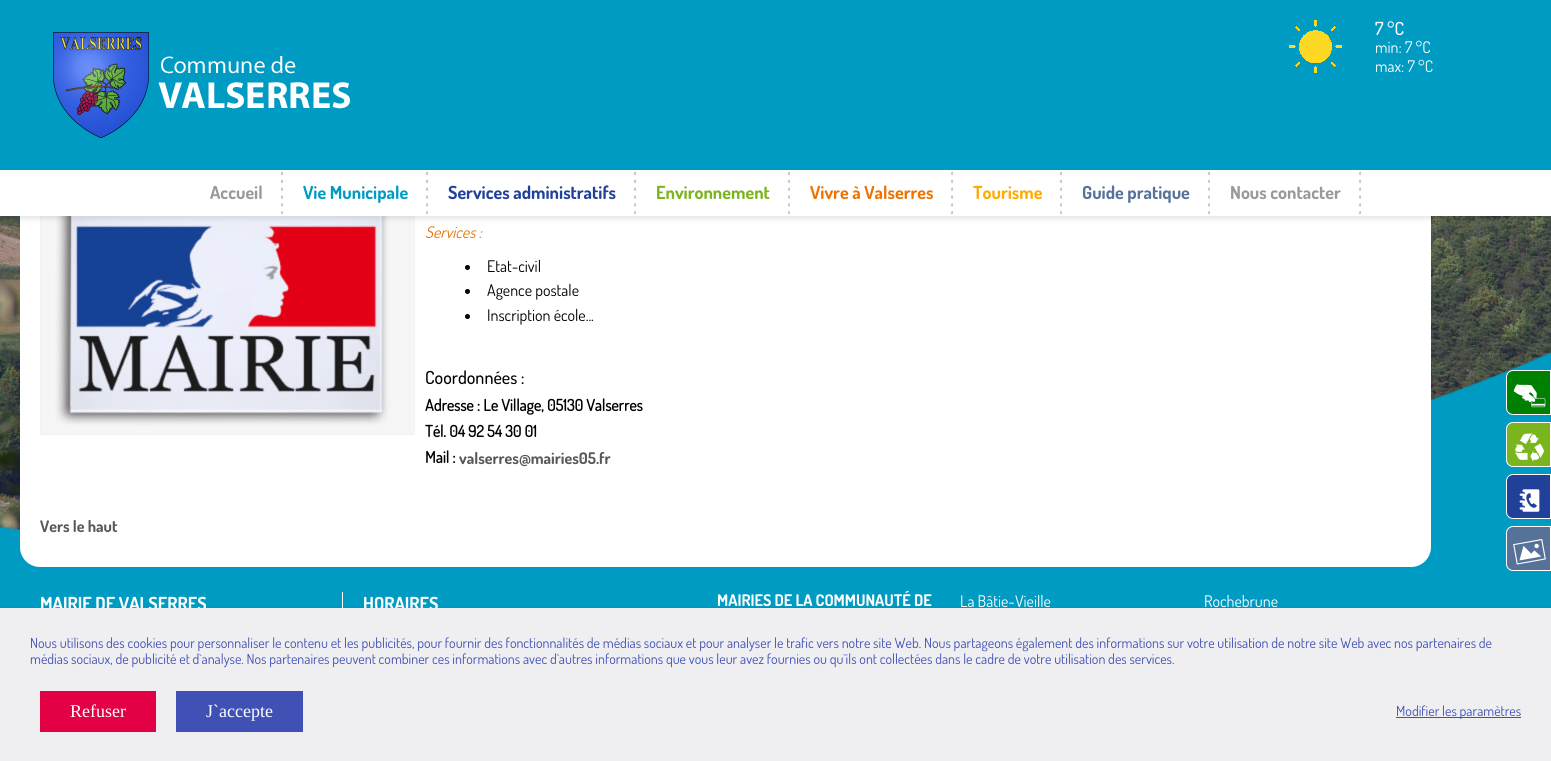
import math
import cairo

surface = cairo.ImageSurface(cairo.Format.RGB24, 1551, 761)
ctx = cairo.Context(surface)
options = cairo.FontOptions()
options.set_hint_metrics(cairo.HintMetrics.OFF)
options.set_hint_style(cairo.HintStyle.NONE)
ctx.set_font_options(options)
ctx.set_miter_limit(4)


def ink(r, g, b):
    ctx.set_source_rgb(r / 255, g / 255, b / 255)


def write(x, y, s, family, size, color, bold=False, italic=False):
    ctx.select_font_face(family, cairo.FontSlant.ITALIC if italic else cairo.FontSlant.NORMAL, cairo.FontWeight.BOLD if bold else cairo.FontWeight.NORMAL)
    ctx.set_font_size(size)
    ink(*color)
    ctx.move_to(x, y)
    ctx.show_text(s)


def block(x, y, w, h, *color):
    ink(*color)
    ctx.rectangle(x, y, w, h)
    ctx.fill()


def round_path(x, y, w, h, r):
    ctx.new_sub_path()
    for i, (u, v) in enumerate([(x + w - r, y + h - r), (x + r, y + h - r), (x + r, y + r), (x + w - r, y + r)]):
        ctx.arc(u, v, r, i * math.pi / 2, (i + 1) * math.pi / 2)
    ctx.close_path()


def blur_box(x, y, w, h, r, blur, alpha):
    ctx.push_group_with_content(cairo.Content.ALPHA)
    ctx.set_operator(cairo.Operator.SOURCE)
    for i in range(15, -16, -2):
        e = blur * i / 6
        if min(w, h) + 2 * e > 0:
            ctx.set_source_rgba(0, 0, 0, alpha * math.erfc((i - 1) / 8.5) / 2)
            round_path(x - e, y - e, w + 2 * e, h + 2 * e, max(0, min(r + e + blur * .6, min(w, h) / 2 + e)))
            ctx.fill()
    ctx.mask(ctx.pop_group())


def paste(path, x, y, w, h):
    ctx.save()
    ctx.set_source_surface(cairo.ImageSurface.create_from_png(path), x, y)
    ctx.rectangle(x, y, w, h)
    ctx.fill()
    ctx.restore()


s1 = dict(family="Dosis Medium", size=18, color=(255, 255, 255))
s2 = dict(family="Dosis", size=16, color=(255, 255, 255))
s3 = dict(family="Dosis", size=18, color=(153, 153, 153), bold=True)
s4 = dict(family="Dosis", size=18, color=(0, 155, 194), bold=True)
s5 = dict(family="Dosis", size=18, color=(33, 64, 153), bold=True)
s6 = dict(family="Dosis", size=18, color=(122, 181, 29), bold=True)
s7 = dict(family="Dosis", size=18, color=(235, 116, 4), bold=True)
s8 = dict(family="Dosis", size=18, color=(255, 170, 0), bold=True)
s9 = dict(family="Dosis", size=18, color=(87, 114, 153), bold=True)
s10 = dict(family="Dosis", size=16, color=(235, 116, 4), italic=True)
s11 = dict(family="Dosis", size=16, color=(0, 0, 0))
s12 = dict(family="Dosis Medium", size=18, color=(0, 0, 0))
s13 = dict(family="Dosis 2", size=16, color=(0, 0, 0), bold=True)
s14 = dict(family="Dosis", size=16, color=(88, 88, 90), bold=True)
s15 = dict(family="Dosis", size=18, color=(255, 255, 255), bold=True)
s16 = dict(family="Dosis", size=16, color=(255, 255, 255), bold=True)
s17 = dict(family="Dosis", size=14, color=(63, 81, 181))
s18 = dict(family="Liberation Serif", size=18, color=(255, 255, 255))

ink(255, 255, 255)
ctx.paint()
paste("pic4.png", 0, 216, 1551, 314)
paste("pic10.png", 0, 352, 1551, 215)
ink(255, 255, 255)
round_path(20, 125, 1411, 442, 20)
ctx.fill()
block(0, 0, 1551, 170, 0, 155, 194)
paste("pic1.png", 53, 32, 297, 106)
paste("pic2.png", 1289, 20, 53, 53)
write(1375, 35, "7 °C", **s1)
write(1375, 53, "min: 7 °C", **s2)
write(1375, 72, "max: 7 °C", **s2)
paste("pic5.png", 40, 216, 375, 219)
ink(0, 0, 0)
blur_box(0, 173, 1551, 46, 0, 2.5, 0.1)
block(0, 170, 1551, 46, 255, 255, 255)
paste("pic3.png", 280, 171, 3, 43)
write(210, 199, "Accueil", **s3)
paste("pic3.png", 425, 171, 3, 43)
write(303, 199, "Vie Municipale", **s4)
paste("pic3.png", 633, 171, 3, 43)
write(448, 199, "Services administratifs", **s5)
paste("pic3.png", 787, 171, 3, 43)
write(656, 199, "Environnement", **s6)
paste("pic3.png", 950, 171, 3, 43)
write(810, 199, "Vivre à Valserres", **s7)
paste("pic3.png", 1059, 171, 3, 43)
write(973, 199, "Tourisme", **s8)
paste("pic3.png", 1207, 171, 3, 43)
write(1082, 199, "Guide pratique", **s9)
paste("pic3.png", 1358, 171, 3, 43)
write(1230, 199, "Nous contacter", **s3)
write(425, 238, "Services :", **s10)
ink(0, 0, 0)
ctx.new_path()
ctx.arc(467.5, 267.5, 2.5, 0, 2 * math.pi)
ctx.fill()
write(487, 272, "Etat-civil", **s11)
ctx.new_path()
ctx.arc(467.5, 291.5, 2.5, 0, 2 * math.pi)
ctx.fill()
write(487, 296, "Agence postale", **s11)
ctx.new_path()
ctx.arc(467.5, 316.5, 2.5, 0, 2 * math.pi)
ctx.fill()
write(487, 321, "Inscription école...", **s11)
write(425, 384, "Coordonnées :", **s12)
write(425, 411, "Adresse : Le Village, 05130 Valserres", **s13)
write(425, 437, "Tél. 04 92 54 30 01", **s13)
write(425, 463, "Mail :", **s13)
write(459, 464, "valserres@mairies05.fr", **s14)
write(40, 532, "Vers le haut", **s14)
ink(0, 128, 0)
ctx.new_path()
ctx.move_to(1513, 370.5)
ctx.line_to(1550.5, 370.5)
ctx.line_to(1550.5, 414.5)
ctx.line_to(1513, 414.5)
ctx.curve_to(1509.5, 414.5, 1506.5, 411.5, 1506.5, 408)
ctx.line_to(1506.5, 377)
ctx.curve_to(1506.5, 373.5, 1509.5, 370.5, 1513, 370.5)
ctx.close_path()
ctx.fill_preserve()
ink(255, 255, 255)
ctx.set_line_width(1)
ctx.stroke()
paste("pic6.png", 1513, 384, 33, 24)
ink(122, 181, 29)
ctx.new_path()
ctx.move_to(1513, 422.5)
ctx.line_to(1550.5, 422.5)
ctx.line_to(1550.5, 466.5)
ctx.line_to(1513, 466.5)
ctx.curve_to(1509.5, 466.5, 1506.5, 463.5, 1506.5, 460)
ctx.line_to(1506.5, 429)
ctx.curve_to(1506.5, 425.5, 1509.5, 422.5, 1513, 422.5)
ctx.close_path()
ctx.fill_preserve()
ink(255, 255, 255)
ctx.stroke()
paste("pic7.png", 1515, 433, 29, 29)
ink(33, 64, 153)
ctx.new_path()
ctx.move_to(1513, 474.5)
ctx.line_to(1550.5, 474.5)
ctx.line_to(1550.5, 518.5)
ctx.line_to(1513, 518.5)
ctx.curve_to(1509.5, 518.5, 1506.5, 515.5, 1506.5, 512)
ctx.line_to(1506.5, 481)
ctx.curve_to(1506.5, 477.5, 1509.5, 474.5, 1513, 474.5)
ctx.close_path()
ctx.fill_preserve()
ink(255, 255, 255)
ctx.stroke()
paste("pic8.png", 1519, 489, 21, 23)
block(0, 567, 1551, 41, 0, 155, 194)
ink(87, 114, 153)
ctx.new_path()
ctx.move_to(1513, 526.5)
ctx.line_to(1550.5, 526.5)
ctx.line_to(1550.5, 570.5)
ctx.line_to(1513, 570.5)
ctx.curve_to(1509.5, 570.5, 1506.5, 567.5, 1506.5, 564)
ctx.line_to(1506.5, 533)
ctx.curve_to(1506.5, 529.5, 1509.5, 526.5, 1513, 526.5)
ctx.close_path()
ctx.fill_preserve()
ink(255, 255, 255)
ctx.stroke()
paste("pic9.png", 1513, 539, 33, 26)
write(40, 610, "MAIRIE DE VALSERRES", **s15)
block(342, 592, 1, 16, 255, 255, 255)
write(363, 610, "HORAIRES", **s15)
write(717, 606, "MAIRIES DE LA COMMUNAUTÉ DE", **s16)
write(960, 607, "La Bâtie-Vieille", **s2)
write(1204, 607, "Rochebrune", **s2)
ink(0, 0, 0)
blur_box(1, 610, 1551, 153, 0, 2.5, 0.2)
block(0, 608, 1551, 153, 239, 238, 241)
write(30, 648, "Nous utilisons des cookies pour personnaliser le contenu et les publicités, pour fournir des fonctionnalités de médias sociaux et pour analyser le trafic vers notre site Web. Nous partageons également des informations sur votre utilisation de notre site Web avec nos partenaires de", **s17)
write(30, 664, "médias sociaux, de publicité et d`analyse. Nos partenaires peuvent combiner ces informations avec d`autres informations que vous leur avez fournies ou qu`ils ont collectées dans le cadre de votre utilisation des services.", **s17)
block(40, 691, 116, 41, 227, 0, 69)
write(70, 717, "Refuser", **s18)
block(176, 691, 127, 41, 63, 81, 181)
write(206, 717, "J`accepte", **s18)
block(1396, 717, 125, 1, 63, 81, 181)
write(1396, 716, "Modifier les paramètres", **s17)
surface.write_to_png("screenshot.png")
